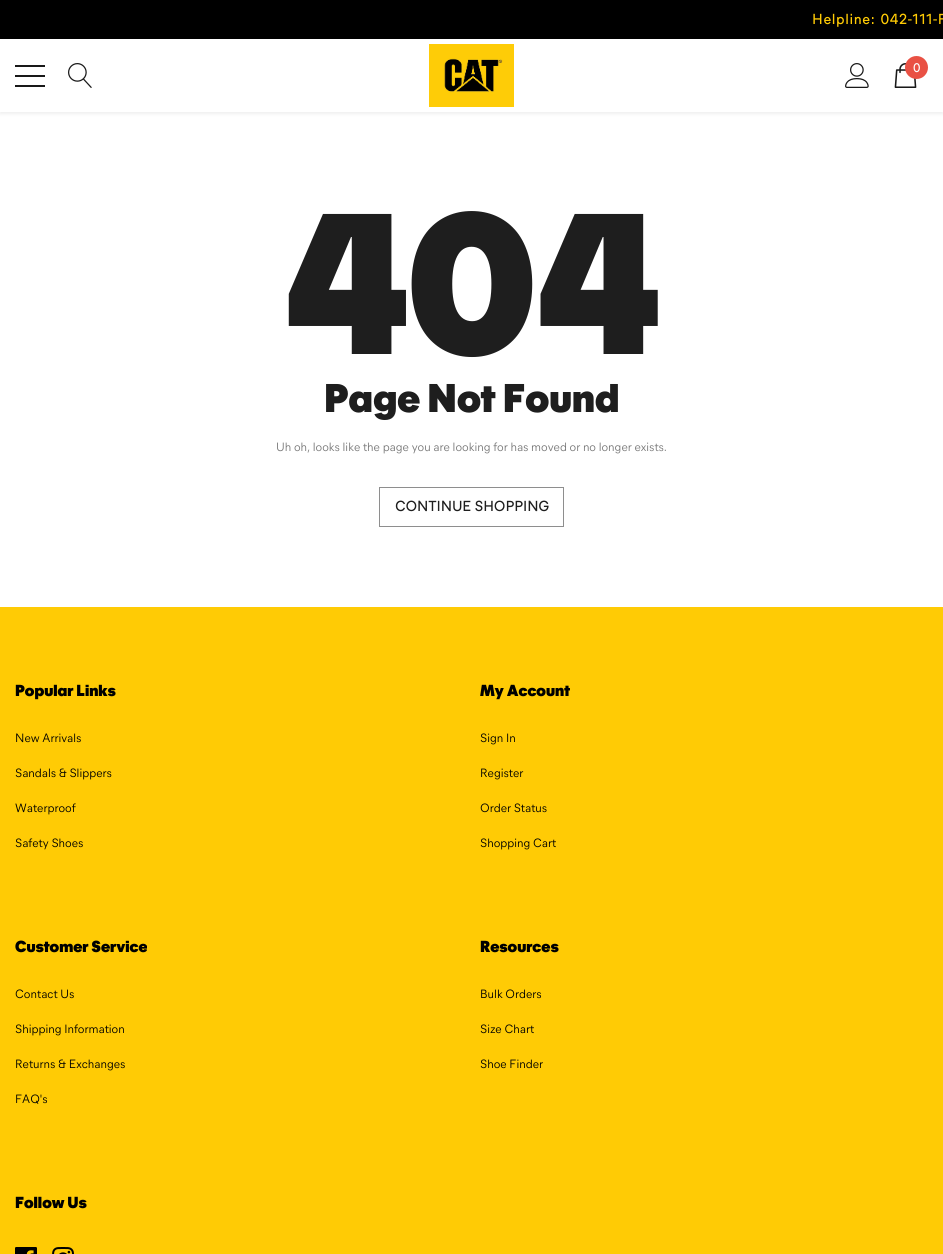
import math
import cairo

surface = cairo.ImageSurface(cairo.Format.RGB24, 943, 1254)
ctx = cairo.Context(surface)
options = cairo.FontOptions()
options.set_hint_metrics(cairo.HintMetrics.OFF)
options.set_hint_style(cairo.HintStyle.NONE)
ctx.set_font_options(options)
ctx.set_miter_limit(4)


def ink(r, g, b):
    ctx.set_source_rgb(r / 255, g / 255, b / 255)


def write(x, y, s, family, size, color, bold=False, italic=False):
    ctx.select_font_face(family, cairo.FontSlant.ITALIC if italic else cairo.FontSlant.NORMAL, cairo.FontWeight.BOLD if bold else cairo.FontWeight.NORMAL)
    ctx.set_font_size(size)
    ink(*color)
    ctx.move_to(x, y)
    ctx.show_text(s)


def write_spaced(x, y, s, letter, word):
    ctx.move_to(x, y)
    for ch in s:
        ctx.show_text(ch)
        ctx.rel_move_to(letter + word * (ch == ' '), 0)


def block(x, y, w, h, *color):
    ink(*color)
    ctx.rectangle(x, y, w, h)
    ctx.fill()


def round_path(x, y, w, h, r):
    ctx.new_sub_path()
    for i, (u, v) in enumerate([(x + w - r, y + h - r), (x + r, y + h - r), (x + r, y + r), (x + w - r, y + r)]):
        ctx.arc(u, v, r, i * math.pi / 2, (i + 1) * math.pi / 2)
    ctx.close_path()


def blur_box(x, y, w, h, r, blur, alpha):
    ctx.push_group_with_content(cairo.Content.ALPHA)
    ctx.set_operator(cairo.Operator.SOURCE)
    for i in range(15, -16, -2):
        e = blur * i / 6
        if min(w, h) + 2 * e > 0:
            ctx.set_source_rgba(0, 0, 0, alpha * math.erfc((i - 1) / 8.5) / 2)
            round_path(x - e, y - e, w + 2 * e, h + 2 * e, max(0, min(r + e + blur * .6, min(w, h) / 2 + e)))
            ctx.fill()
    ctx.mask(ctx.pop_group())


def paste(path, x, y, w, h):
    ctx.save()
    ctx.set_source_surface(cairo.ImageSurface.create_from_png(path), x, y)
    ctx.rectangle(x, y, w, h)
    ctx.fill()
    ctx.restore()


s1 = dict(family="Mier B", size=12, color=(255, 255, 255), bold=True)
s2 = dict(family="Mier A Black", size=200, color=(30, 30, 30))
s3 = dict(family="Mier A Black", size=40, color=(30, 30, 30))
s4 = dict(family="Mier B", size=12, color=(120, 120, 120))
s5 = dict(family="Mier A Black", size=16, color=(0, 0, 0))
s6 = dict(family="Mier B", size=12, color=(0, 0, 0))

ink(255, 255, 255)
ctx.paint()
ctx.save()
ctx.rectangle(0, 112, 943, 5)
ctx.clip()
ink(239, 239, 239)
blur_box(0, 2, 943, 112, 0, 1.5, 1)
ctx.restore()
block(0, 0, 943, 39, 0, 0, 0)
ctx.select_font_face("Mier B", cairo.FontSlant.NORMAL, cairo.FontWeight.BOLD)
ctx.set_font_size(14)
ink(255, 203, 5)
write_spaced(812, 24, "Helpline: 042-111-F", 1, 1)
block(15, 75, 30, 2, 25, 25, 25)
block(15, 65, 30, 2, 25, 25, 25)
block(15, 85, 30, 2, 25, 25, 25)
paste("pic1.png", 68, 63, 24, 25)
paste("pic2.png", 429, 44, 85, 63)
paste("pic3.png", 845, 63, 24, 25)
paste("pic4.png", 894, 63, 23, 25)
ink(233, 81, 68)
ctx.arc(916.5, 67.5, 11.5, 0, 2 * math.pi)
ctx.fill()
write(913, 72, "0", **s1)
write(284, 354, "404", **s2)
write(324, 412, "Page Not Found", **s3)
write(276, 451, "Uh oh, looks like the page you are looking for has moved or no longer exists.", **s4)
ctx.rectangle(379.5, 487.5, 184, 39)
ink(142, 142, 142)
ctx.set_line_width(1)
ctx.stroke()
ctx.select_font_face("Mier B", cairo.FontSlant.NORMAL, cairo.FontWeight.BOLD)
ctx.set_font_size(14)
ink(30, 30, 30)
write_spaced(395, 511, "CONTINUE SHOPPING", 0.25, 0)
block(0, 607, 943, 647, 255, 203, 5)
write(15, 696, "Popular Links", **s5)
write(15, 742, "New Arrivals", **s6)
write(15, 777, "Sandals & Slippers", **s6)
write(15, 812, "Waterproof", **s6)
write(15, 847, "Safety Shoes", **s6)
write(480, 696, "My Account", **s5)
write(480, 742, "Sign In", **s6)
write(480, 777, "Register", **s6)
write(480, 812, "Order Status", **s6)
write(480, 847, "Shopping Cart", **s6)
write(15, 952, "Customer Service", **s5)
write(15, 998, "Contact Us", **s6)
write(15, 1033, "Shipping Information", **s6)
write(15, 1068, "Returns & Exchanges", **s6)
write(15, 1103, "FAQ's", **s6)
write(480, 952, "Resources", **s5)
write(480, 998, "Bulk Orders", **s6)
write(480, 1033, "Size Chart", **s6)
write(480, 1068, "Shoe Finder", **s6)
write(15, 1208, "Follow Us", **s5)
paste("pic5.png", 15, 1247, 22, 7)
paste("pic6.png", 52, 1247, 22, 7)
surface.write_to_png("screenshot.png")
